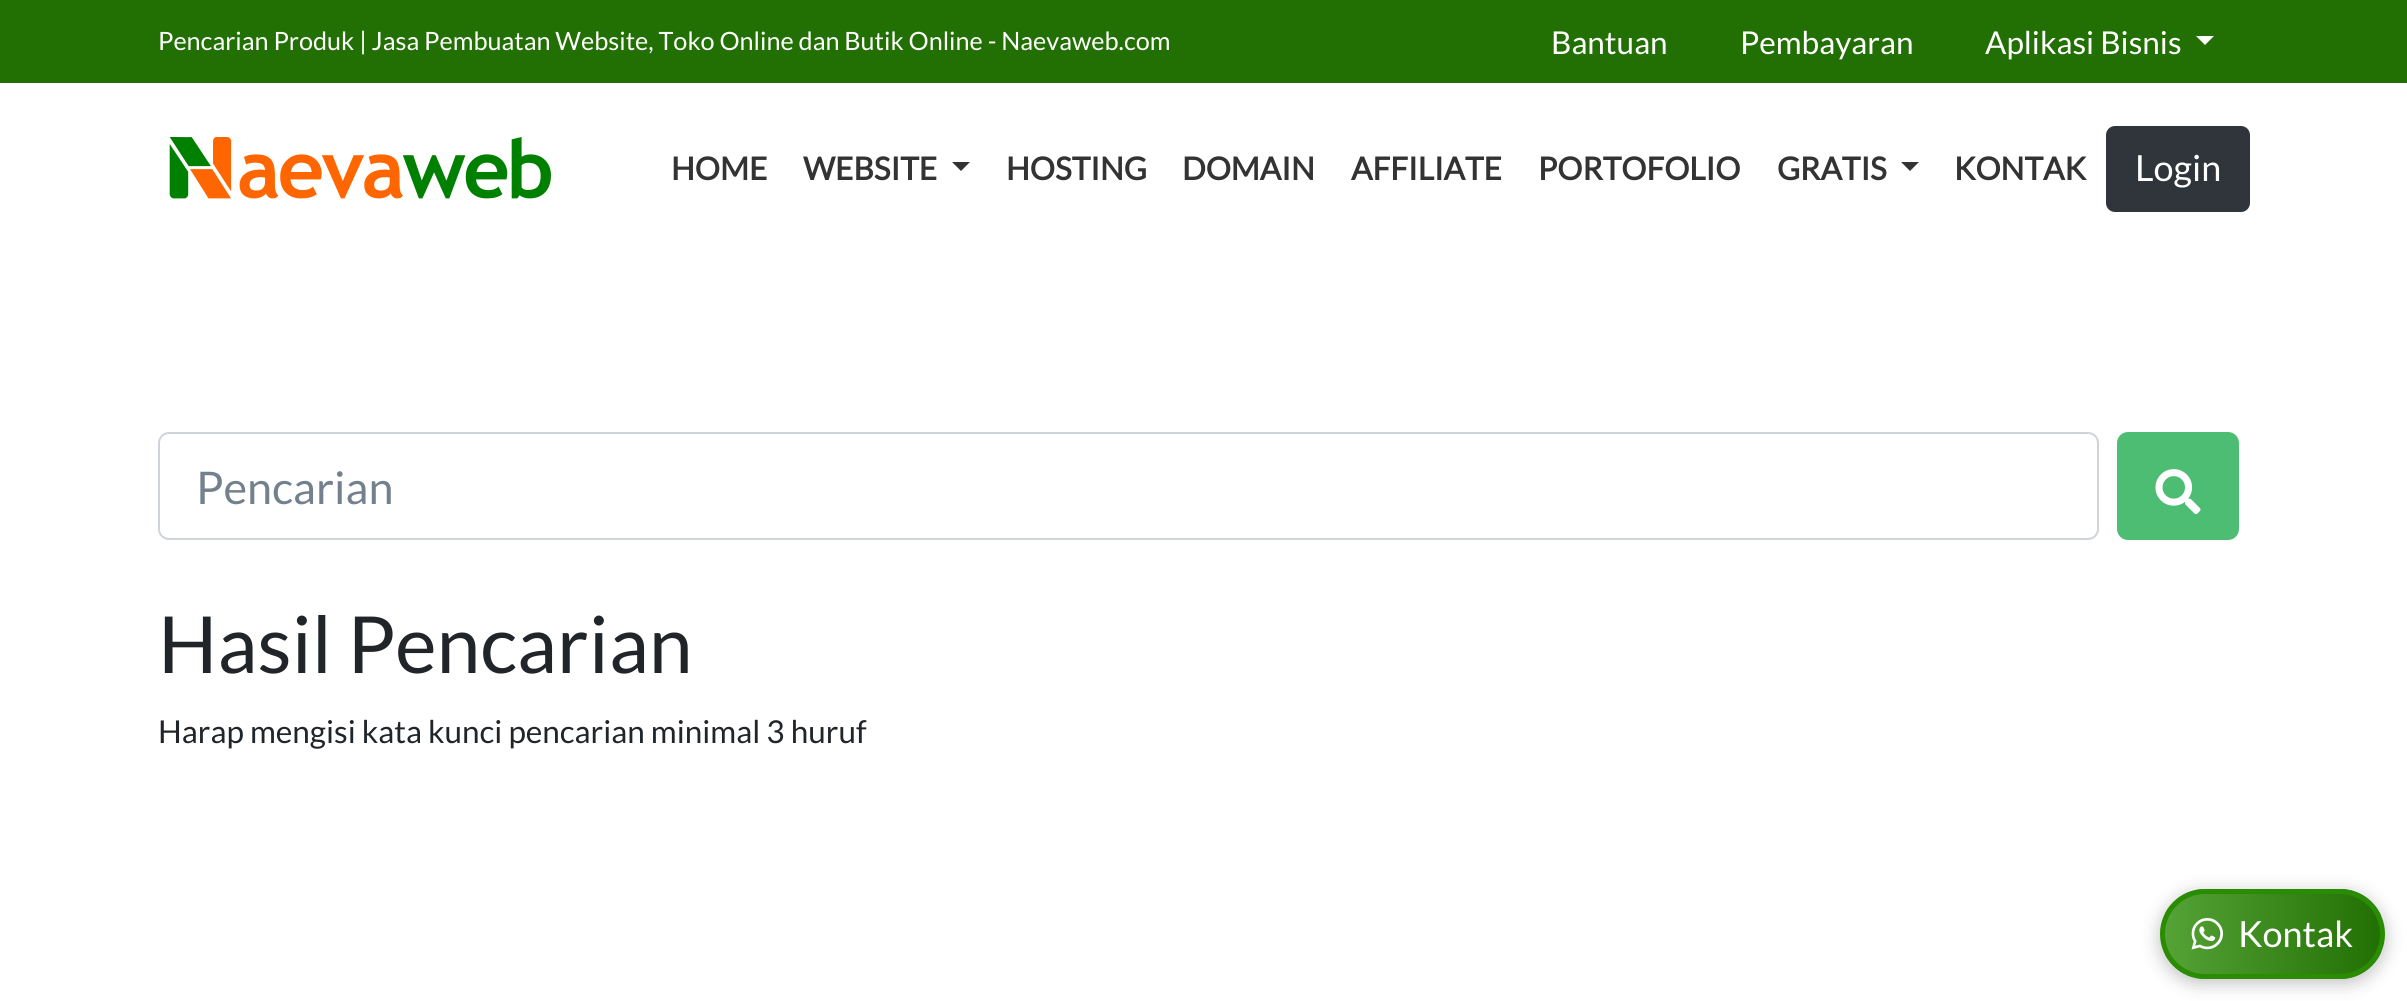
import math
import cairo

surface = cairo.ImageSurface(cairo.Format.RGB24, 2407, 1001)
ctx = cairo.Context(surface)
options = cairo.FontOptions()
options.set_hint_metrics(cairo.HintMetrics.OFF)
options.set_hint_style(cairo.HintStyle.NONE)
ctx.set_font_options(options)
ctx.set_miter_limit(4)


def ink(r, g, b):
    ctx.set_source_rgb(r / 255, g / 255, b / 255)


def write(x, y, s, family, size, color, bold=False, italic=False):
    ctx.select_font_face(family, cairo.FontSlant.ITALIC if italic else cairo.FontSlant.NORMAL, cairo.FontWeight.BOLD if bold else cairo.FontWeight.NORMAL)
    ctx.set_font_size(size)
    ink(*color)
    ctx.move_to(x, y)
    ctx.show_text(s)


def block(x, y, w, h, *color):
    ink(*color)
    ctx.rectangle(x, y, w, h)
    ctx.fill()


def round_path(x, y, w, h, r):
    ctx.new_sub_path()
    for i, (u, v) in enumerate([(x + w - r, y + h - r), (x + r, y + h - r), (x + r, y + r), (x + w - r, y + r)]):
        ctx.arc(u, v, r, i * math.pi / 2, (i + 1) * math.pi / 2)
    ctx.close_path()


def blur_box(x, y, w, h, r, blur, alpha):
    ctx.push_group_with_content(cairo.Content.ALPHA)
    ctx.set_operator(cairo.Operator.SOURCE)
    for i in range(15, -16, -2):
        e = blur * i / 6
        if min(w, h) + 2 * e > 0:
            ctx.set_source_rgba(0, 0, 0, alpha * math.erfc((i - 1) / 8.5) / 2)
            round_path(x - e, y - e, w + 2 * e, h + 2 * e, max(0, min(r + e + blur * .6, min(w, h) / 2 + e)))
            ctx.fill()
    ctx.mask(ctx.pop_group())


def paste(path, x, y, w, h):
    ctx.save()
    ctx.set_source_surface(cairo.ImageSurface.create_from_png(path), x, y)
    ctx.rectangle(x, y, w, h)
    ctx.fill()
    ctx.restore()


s1 = dict(family="Lato", size=25.2, color=(255, 255, 255))
s2 = dict(family="Lato", size=31.5, color=(255, 255, 255))
s3 = dict(family="Lato", size=31.5, color=(51, 51, 51), bold=True)
s4 = dict(family="Lato", size=36, color=(255, 255, 255))
s5 = dict(family="Lato", size=45, color=(115, 129, 143))
s6 = dict(family="Lato", size=78.75, color=(33, 37, 41))
s7 = dict(family="Lato", size=31.5, color=(33, 37, 41))

ink(255, 255, 255)
ctx.paint()
block(0, 0, 2407, 83, 34, 112, 3)
write(158, 50, "Pencarian Produk | Jasa Pembuatan Website, Toko Online dan Butik Online - Naevaweb.com", **s1)
write(1551, 54, "Bantuan", **s2)
write(1740, 54, "Pembayaran", **s2)
write(1985, 54, "Aplikasi Bisnis", **s2)
ctx.new_path()
ctx.move_to(2196, 36)
ctx.line_to(2214, 36)
ctx.line_to(2205, 45)
ctx.close_path()
ctx.fill()
paste("pic1.png", 169, 137, 382, 62)
write(671, 180, "HOME", **s3)
write(803, 180, "WEBSITE", **s3)
ctx.new_path()
ctx.move_to(952, 162)
ctx.line_to(970, 162)
ctx.line_to(961, 171)
ctx.close_path()
ctx.fill()
write(1006, 180, "HOSTING", **s3)
write(1182, 180, "DOMAIN", **s3)
write(1351, 180, "AFFILIATE", **s3)
write(1538, 180, "PORTOFOLIO", **s3)
write(1777, 180, "GRATIS", **s3)
ctx.new_path()
ctx.move_to(1901, 162)
ctx.line_to(1919, 162)
ctx.line_to(1910, 171)
ctx.close_path()
ctx.fill()
write(1954, 180, "KONTAK", **s3)
ink(47, 53, 58)
round_path(2107, 127, 142, 84, 8)
ctx.fill_preserve()
ctx.stroke()
write(2135, 181, "Login", **s4)
round_path(159, 433, 1939, 106, 10)
ink(206, 212, 218)
ctx.stroke()
write(196, 504, "Pencarian", **s5)
ink(77, 189, 116)
round_path(2118, 433, 120, 106, 10)
ctx.fill_preserve()
ctx.stroke()
paste("pic2.png", 2155, 469, 46, 46)
write(158, 673, "Hasil Pencarian", **s6)
write(158, 743, "Harap mengisi kata kunci pencarian minimal 3 huruf", **s7)
ink(0, 0, 0)
blur_box(2160, 893, 225, 90, 45, 9, 0.25)
ctx.save()
round_path(2160, 889, 225, 90, 45)
ctx.clip()
gradient = cairo.LinearGradient(2381, 934, 2165, 934)
gradient.add_color_stop_rgba(0, 0.133, 0.439, 0.012, 1)
gradient.add_color_stop_rgba(1, 0.333, 0.639, 0.212, 1)
ctx.set_source(gradient)
ctx.rectangle(2165, 889, 216, 90)
ctx.fill()
ctx.restore()
round_path(2162.5, 891.5, 220, 85, 42.5)
ink(42, 140, 3)
ctx.set_line_width(5)
ctx.stroke()
paste("pic3.png", 2191, 918, 32, 32)
write(2238, 947, "Kontak", **s4)
surface.write_to_png("screenshot.png")
